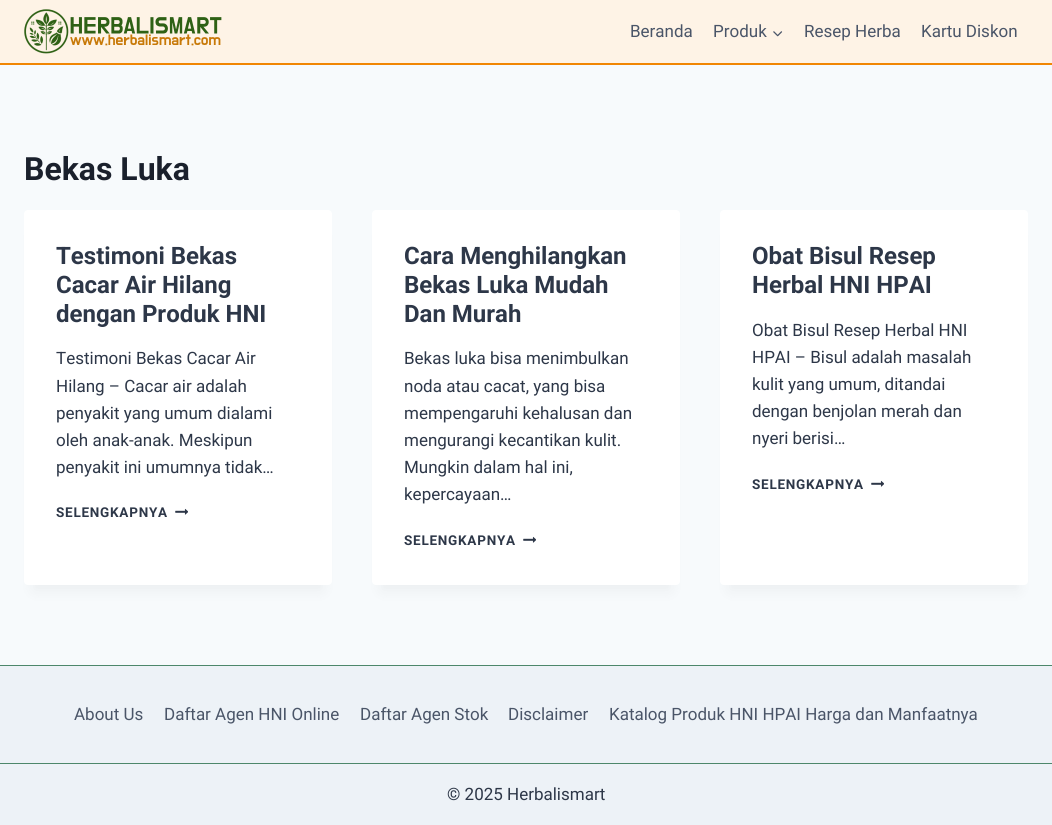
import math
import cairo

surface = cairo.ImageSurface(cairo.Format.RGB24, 1052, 825)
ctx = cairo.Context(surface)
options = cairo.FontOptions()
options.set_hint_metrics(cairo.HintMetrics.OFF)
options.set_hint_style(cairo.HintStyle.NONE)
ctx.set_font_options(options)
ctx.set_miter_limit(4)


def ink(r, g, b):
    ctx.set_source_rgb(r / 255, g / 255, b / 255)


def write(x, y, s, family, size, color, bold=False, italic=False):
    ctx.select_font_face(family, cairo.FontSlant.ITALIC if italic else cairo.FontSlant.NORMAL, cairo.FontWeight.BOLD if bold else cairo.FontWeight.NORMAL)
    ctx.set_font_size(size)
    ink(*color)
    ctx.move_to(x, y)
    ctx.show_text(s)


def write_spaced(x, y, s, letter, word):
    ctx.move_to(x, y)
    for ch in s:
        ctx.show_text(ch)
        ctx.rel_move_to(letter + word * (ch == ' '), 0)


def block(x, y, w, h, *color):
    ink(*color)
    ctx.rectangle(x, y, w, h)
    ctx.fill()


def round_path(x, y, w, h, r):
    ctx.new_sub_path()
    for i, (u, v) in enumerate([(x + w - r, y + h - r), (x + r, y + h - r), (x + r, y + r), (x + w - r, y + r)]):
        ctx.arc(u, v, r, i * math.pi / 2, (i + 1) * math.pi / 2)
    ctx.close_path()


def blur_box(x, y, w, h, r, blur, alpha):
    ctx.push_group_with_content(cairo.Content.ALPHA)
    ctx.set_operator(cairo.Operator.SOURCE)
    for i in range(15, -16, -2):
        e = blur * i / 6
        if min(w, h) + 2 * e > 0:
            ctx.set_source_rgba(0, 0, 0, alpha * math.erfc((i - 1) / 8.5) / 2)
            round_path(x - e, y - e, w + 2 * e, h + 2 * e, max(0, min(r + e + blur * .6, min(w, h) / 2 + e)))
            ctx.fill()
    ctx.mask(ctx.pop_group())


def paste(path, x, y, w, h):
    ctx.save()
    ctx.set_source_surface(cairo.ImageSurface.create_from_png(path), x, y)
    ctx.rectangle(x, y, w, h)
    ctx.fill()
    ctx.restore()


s1 = dict(family="Roboto", size=17, color=(74, 85, 104))
s2 = dict(family="Roboto", size=32, color=(26, 32, 44), bold=True)
s3 = dict(family="Roboto", size=24, color=(45, 55, 72), bold=True)
s4 = dict(family="Roboto", size=17, color=(45, 55, 72))

ink(247, 250, 252)
ctx.paint()
block(0, 0, 1052, 63, 254, 243, 230)
block(0, 63, 1052, 2, 241, 134, 3)
paste("pic1.png", 24, 9, 198, 45)
write(630, 37, "Beranda", **s1)
write(713, 37, "Produk", **s1)
paste("pic2.png", 773, 31, 10, 6)
write(804, 37, "Resep Herba", **s1)
write(921, 37, "Kartu Diskon", **s1)
write(24, 180, "Bekas Luka", **s2)
ink(0, 0, 0)
blur_box(34, 235, 288, 355, 0, 7.5, 0.05)
ink(255, 255, 255)
round_path(24, 210, 308, 375, 4)
ctx.fill()
write(56, 264, "Testimoni Bekas", **s3)
write(56, 293, "Cacar Air Hilang", **s3)
write(56, 322, "dengan Produk HNI", **s3)
write(56, 364, "Testimoni Bekas Cacar Air", **s4)
write(56, 392, "Hilang – Cacar air adalah", **s4)
write(56, 419, "penyakit yang umum dialami", **s4)
write(56, 446, "oleh anak-anak. Meskipun", **s4)
write(56, 473, "penyakit ini umumnya tidak…", **s4)
ctx.select_font_face("Roboto", cairo.FontSlant.NORMAL, cairo.FontWeight.BOLD)
ctx.set_font_size(13.5)
write_spaced(56, 517, "SELENGKAPNYA", 0.75, 0)
paste("pic3.png", 175, 508, 13, 7)
ink(0, 0, 0)
blur_box(382, 235, 288, 355, 0, 7.5, 0.05)
ink(255, 255, 255)
round_path(372, 210, 308, 375, 4)
ctx.fill()
write(404, 264, "Cara Menghilangkan", **s3)
write(404, 293, "Bekas Luka Mudah", **s3)
write(404, 322, "Dan Murah", **s3)
write(404, 364, "Bekas luka bisa menimbulkan", **s4)
write(404, 392, "noda atau cacat, yang bisa", **s4)
write(404, 419, "mempengaruhi kehalusan dan", **s4)
write(404, 446, "mengurangi kecantikan kulit.", **s4)
write(404, 473, "Mungkin dalam hal ini,", **s4)
write(404, 500, "kepercayaan…", **s4)
ctx.select_font_face("Roboto", cairo.FontSlant.NORMAL, cairo.FontWeight.BOLD)
ctx.set_font_size(13.5)
write_spaced(404, 545, "SELENGKAPNYA", 0.75, 0)
paste("pic3.png", 523, 536, 13, 7)
ink(0, 0, 0)
blur_box(730, 235, 288, 355, 0, 7.5, 0.05)
ink(255, 255, 255)
round_path(720, 210, 308, 375, 4)
ctx.fill()
write(752, 264, "Obat Bisul Resep", **s3)
write(752, 293, "Herbal HNI HPAI", **s3)
write(752, 336, "Obat Bisul Resep Herbal HNI", **s4)
write(752, 363, "HPAI – Bisul adalah masalah", **s4)
write(752, 390, "kulit yang umum, ditandai", **s4)
write(752, 417, "dengan benjolan merah dan", **s4)
write(752, 444, "nyeri berisi…", **s4)
ctx.select_font_face("Roboto", cairo.FontSlant.NORMAL, cairo.FontWeight.BOLD)
ctx.set_font_size(13.5)
write_spaced(752, 489, "SELENGKAPNYA", 0.75, 0)
paste("pic3.png", 871, 480, 13, 7)
block(0, 666, 1052, 159, 237, 242, 247)
block(0, 665, 1052, 1, 77, 135, 107)
block(0, 763, 1052, 1, 77, 135, 107)
write(74, 720, "About Us", **s1)
write(164, 720, "Daftar Agen HNI Online", **s1)
write(360, 720, "Daftar Agen Stok", **s1)
write(508, 720, "Disclaimer", **s1)
write(609, 720, "Katalog Produk HNI HPAI Harga dan Manfaatnya", **s1)
write(447, 800, "© 2025 Herbalismart", **s4)
surface.write_to_png("screenshot.png")
